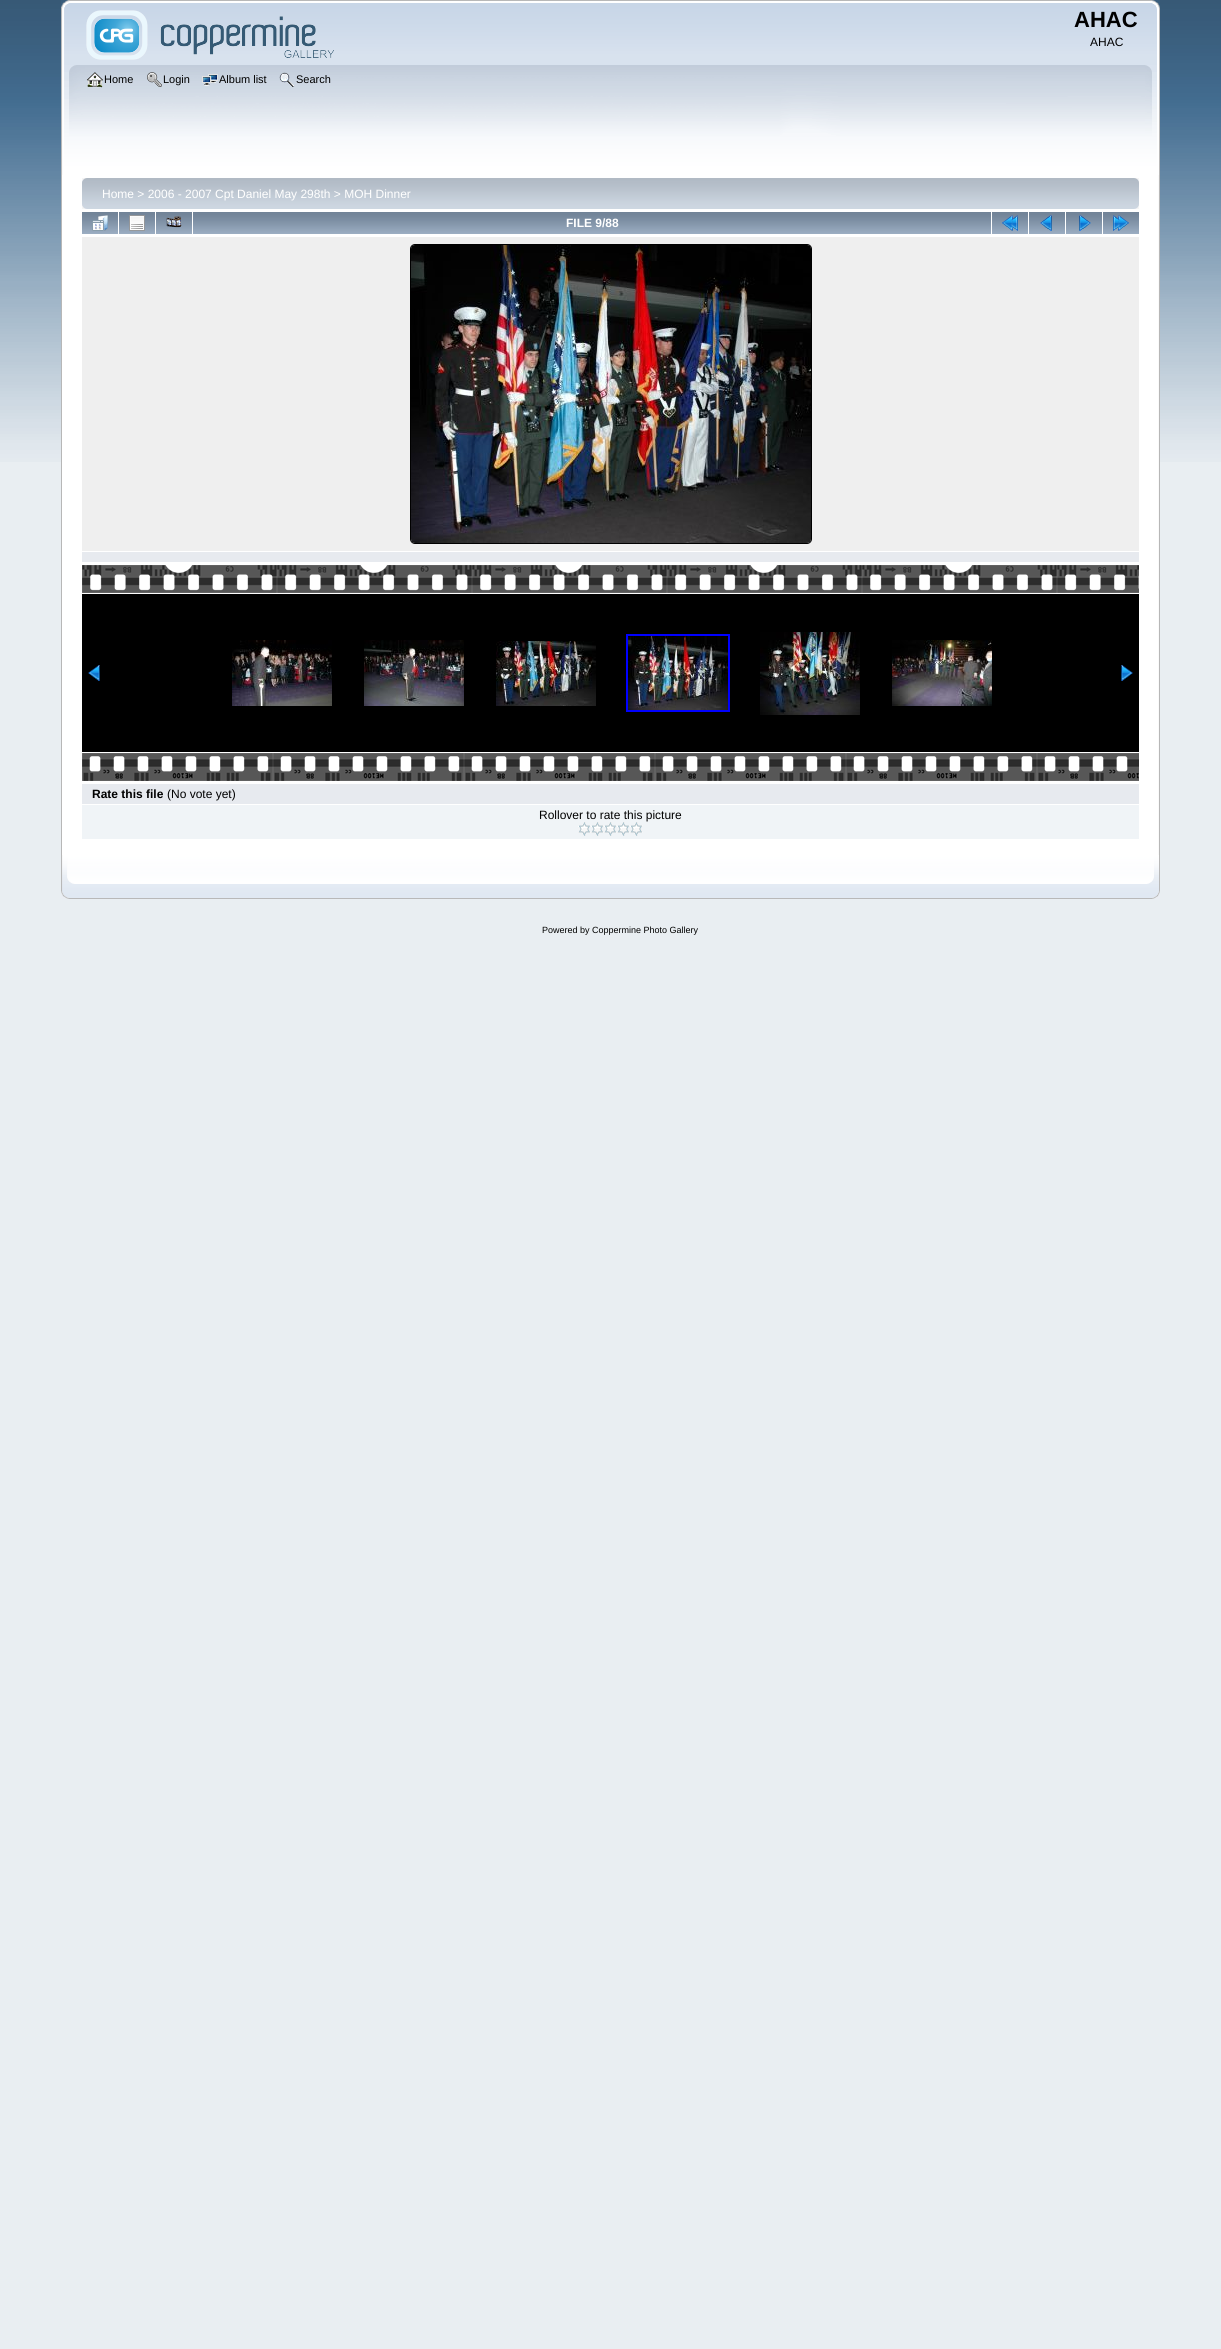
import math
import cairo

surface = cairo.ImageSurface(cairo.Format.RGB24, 1221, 2349)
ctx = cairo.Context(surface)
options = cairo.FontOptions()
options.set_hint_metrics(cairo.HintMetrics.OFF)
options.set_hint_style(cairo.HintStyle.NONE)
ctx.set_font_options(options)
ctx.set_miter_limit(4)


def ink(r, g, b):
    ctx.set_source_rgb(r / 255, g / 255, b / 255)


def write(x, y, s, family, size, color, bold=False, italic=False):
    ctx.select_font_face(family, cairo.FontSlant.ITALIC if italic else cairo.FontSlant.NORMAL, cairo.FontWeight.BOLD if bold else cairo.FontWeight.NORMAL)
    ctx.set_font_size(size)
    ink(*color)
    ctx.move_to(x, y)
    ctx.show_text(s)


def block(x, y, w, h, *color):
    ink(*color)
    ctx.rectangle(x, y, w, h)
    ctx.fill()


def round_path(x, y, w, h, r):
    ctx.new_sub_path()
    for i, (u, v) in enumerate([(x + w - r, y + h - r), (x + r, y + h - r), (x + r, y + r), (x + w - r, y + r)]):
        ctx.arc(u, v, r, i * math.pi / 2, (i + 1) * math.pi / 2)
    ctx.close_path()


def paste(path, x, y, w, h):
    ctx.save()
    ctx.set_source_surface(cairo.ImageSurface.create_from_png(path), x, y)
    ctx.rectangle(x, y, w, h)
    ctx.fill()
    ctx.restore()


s1 = dict(family="Liberation Sans", size=22, color=(0, 0, 0), bold=True)
s2 = dict(family="Liberation Sans", size=12, color=(0, 0, 0))
s3 = dict(family="Liberation Sans", size=11, color=(0, 0, 0))
s4 = dict(family="Liberation Sans", size=12, color=(255, 255, 255))
s5 = dict(family="Liberation Sans", size=12, color=(255, 255, 255), bold=True)
s6 = dict(family="Liberation Sans", size=12, color=(0, 0, 0), bold=True)
s7 = dict(family="Liberation Sans", size=9, color=(0, 0, 0))

ink(233, 238, 242)
ctx.paint()
paste("pic1.png", 0, 0, 1221, 462)
paste("pic2.png", 61, 0, 1091, 65)
paste("pic3.png", 1152, 0, 8, 65)
paste("pic4.png", 86, 10, 248, 50)
write(1074, 27, "AHAC", **s1)
write(1090, 46, "AHAC", **s2)
paste("pic5.png", 61, 65, 1084, 110)
paste("pic6.png", 1145, 65, 15, 110)
paste("pic7.png", 87, 72, 16, 16)
write(104, 83, "Home", **s3)
paste("pic8.png", 147, 72, 15, 15)
write(163, 83, "Login", **s3)
paste("pic9.png", 202, 74, 16, 12)
write(219, 83, "Album list", **s3)
paste("pic10.png", 279, 72, 16, 15)
write(296, 83, "Search", **s3)
block(62, 175, 1096, 680, 255, 255, 255)
block(61, 175, 1, 680, 183, 183, 183)
paste("pic11.png", 1158, 175, 2, 680)
paste("pic12.png", 82, 178, 1052, 31)
paste("pic13.png", 1134, 178, 5, 31)
write(102, 198, "Home > 2006 - 2007 Cpt Daniel May 298th > MOH Dinner", **s4)
paste("pic14.png", 82, 212, 36, 22)
paste("pic15.png", 92, 215, 16, 16)
paste("pic14.png", 119, 212, 36, 22)
paste("pic16.png", 129, 215, 16, 16)
paste("pic14.png", 156, 212, 36, 22)
paste("pic17.png", 166, 216, 16, 12)
paste("pic18.png", 193, 212, 798, 22)
write(566, 227, "FILE 9/88", **s5)
paste("pic14.png", 992, 212, 36, 22)
paste("pic19.png", 1002, 215, 16, 16)
paste("pic14.png", 1029, 212, 36, 22)
paste("pic20.png", 1040, 215, 12, 16)
paste("pic14.png", 1066, 212, 36, 22)
paste("pic21.png", 1079, 215, 12, 16)
paste("pic14.png", 1103, 212, 36, 22)
paste("pic22.png", 1113, 215, 16, 16)
block(82, 237, 1057, 314, 239, 239, 239)
round_path(410.5, 244.5, 401, 299, 4.5)
ink(0, 0, 0)
ctx.set_line_width(1)
ctx.stroke()
paste("pic23.png", 411, 245, 400, 298)
block(82, 552, 1057, 10, 231, 234, 239)
paste("pic24.png", 82, 565, 1057, 28)
block(82, 594, 1057, 158, 0, 0, 0)
paste("pic25.png", 88, 665, 12, 16)
paste("pic26.png", 232, 640, 100, 66)
paste("pic27.png", 364, 640, 100, 66)
paste("pic28.png", 496, 641, 100, 65)
ctx.rectangle(627, 635, 102, 76)
ink(0, 0, 255)
ctx.set_line_width(2)
ctx.stroke()
paste("pic29.png", 628, 636, 100, 74)
paste("pic30.png", 760, 632, 100, 83)
paste("pic31.png", 892, 640, 100, 66)
paste("pic32.png", 1121, 665, 12, 16)
paste("pic33.png", 82, 753, 1057, 28)
block(82, 784, 1057, 20, 231, 234, 239)
write(92, 798, "Rate this file", **s6)
write(167, 798, "(No vote yet)", **s2)
block(82, 805, 1057, 34, 240, 244, 247)
write(539, 819, "Rollover to rate this picture", **s2)
paste("pic34.png", 578, 822, 13, 14)
paste("pic34.png", 591, 822, 13, 14)
paste("pic34.png", 604, 822, 13, 14)
paste("pic34.png", 617, 822, 13, 14)
paste("pic34.png", 630, 822, 13, 14)
paste("pic35.png", 61, 855, 1086, 44)
paste("pic36.png", 1147, 855, 13, 44)
write(542, 933, "Powered by Coppermine Photo Gallery", **s7)
surface.write_to_png("screenshot.png")
